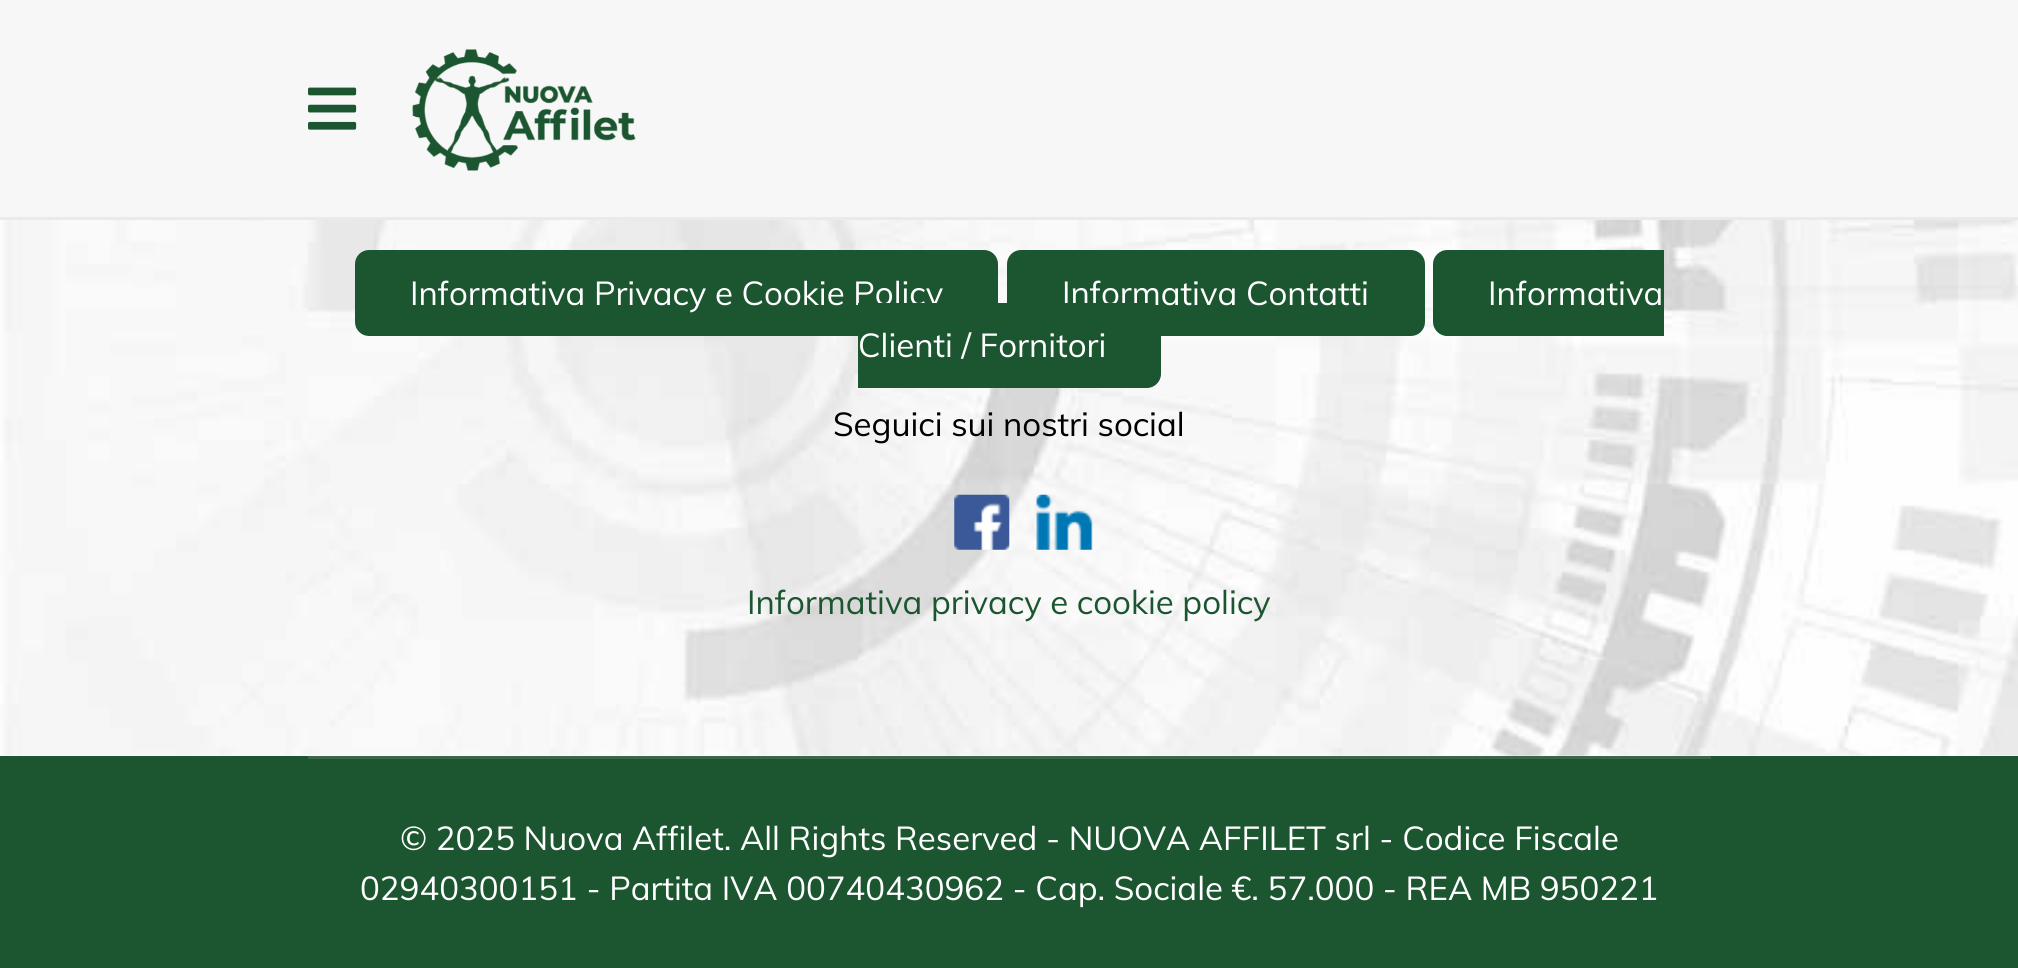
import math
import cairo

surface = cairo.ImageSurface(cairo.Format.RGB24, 2018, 968)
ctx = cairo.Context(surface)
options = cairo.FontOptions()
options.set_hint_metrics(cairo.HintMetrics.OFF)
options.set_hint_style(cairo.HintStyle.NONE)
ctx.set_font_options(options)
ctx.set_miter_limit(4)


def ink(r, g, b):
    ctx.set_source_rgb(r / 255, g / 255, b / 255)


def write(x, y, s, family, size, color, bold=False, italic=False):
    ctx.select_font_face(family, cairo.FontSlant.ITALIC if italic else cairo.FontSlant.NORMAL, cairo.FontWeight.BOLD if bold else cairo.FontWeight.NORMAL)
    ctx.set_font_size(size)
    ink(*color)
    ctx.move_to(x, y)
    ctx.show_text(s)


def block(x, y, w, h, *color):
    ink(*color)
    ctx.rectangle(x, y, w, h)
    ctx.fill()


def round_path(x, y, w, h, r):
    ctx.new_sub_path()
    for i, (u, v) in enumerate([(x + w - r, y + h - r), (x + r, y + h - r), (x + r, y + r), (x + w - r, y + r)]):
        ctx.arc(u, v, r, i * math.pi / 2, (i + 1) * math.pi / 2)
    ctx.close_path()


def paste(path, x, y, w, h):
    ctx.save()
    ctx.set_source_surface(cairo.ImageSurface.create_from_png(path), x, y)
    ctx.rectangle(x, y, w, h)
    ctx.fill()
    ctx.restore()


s1 = dict(family="Muli", size=33, color=(255, 255, 255))
s2 = dict(family="Muli", size=33, color=(0, 0, 0))
s3 = dict(family="Muli", size=33, color=(27, 86, 48))

ink(255, 255, 255)
ctx.paint()
block(0, 0, 2018, 217, 247, 247, 247)
block(0, 217, 2018, 3, 233, 234, 239)
paste("pic1.png", 308, 87, 49, 43)
paste("pic2.png", 412, 49, 224, 122)
paste("pic3.png", 0, 220, 2018, 536)
ink(27, 86, 48)
round_path(355, 250, 643, 86, 14)
ctx.fill()
write(410, 305, "Informativa Privacy e Cookie Policy", **s1)
ink(27, 86, 48)
round_path(1007, 250, 418, 86, 14)
ctx.fill()
write(1062, 305, "Informativa Contatti", **s1)
ink(27, 86, 48)
ctx.new_path()
ctx.move_to(1447, 250)
ctx.line_to(1664, 250)
ctx.line_to(1664, 336)
ctx.line_to(1447, 336)
ctx.curve_to(1439.5, 336, 1433, 329.5, 1433, 322)
ctx.line_to(1433, 264)
ctx.curve_to(1433, 256.5, 1439.5, 250, 1447, 250)
ctx.close_path()
ctx.fill()
write(1488, 305, "Informativa", **s1)
ink(27, 86, 48)
ctx.new_path()
ctx.move_to(858, 303)
ctx.line_to(1147, 303)
ctx.curve_to(1154.5, 303, 1161, 309.5, 1161, 317)
ctx.line_to(1161, 374)
ctx.curve_to(1161, 381.5, 1154.5, 388, 1147, 388)
ctx.line_to(858, 388)
ctx.close_path()
ctx.fill()
write(858, 357, "Clienti / Fornitori", **s1)
write(833, 436, "Seguici sui nostri social", **s2)
paste("pic4.png", 954, 494, 56, 56)
paste("pic5.png", 1036, 494, 57, 56)
write(747, 614, "Informativa privacy e cookie policy", **s3)
block(0, 756, 2018, 212, 28, 86, 48)
block(308, 756, 1403, 3, 60, 101, 74)
write(400, 850, "© 2025 Nuova Affilet. All Rights Reserved - NUOVA AFFILET srl - Codice Fiscale", **s1)
write(360, 900, "02940300151 - Partita IVA 00740430962 - Cap. Sociale €. 57.000 - REA MB 950221", **s1)
surface.write_to_png("screenshot.png")
